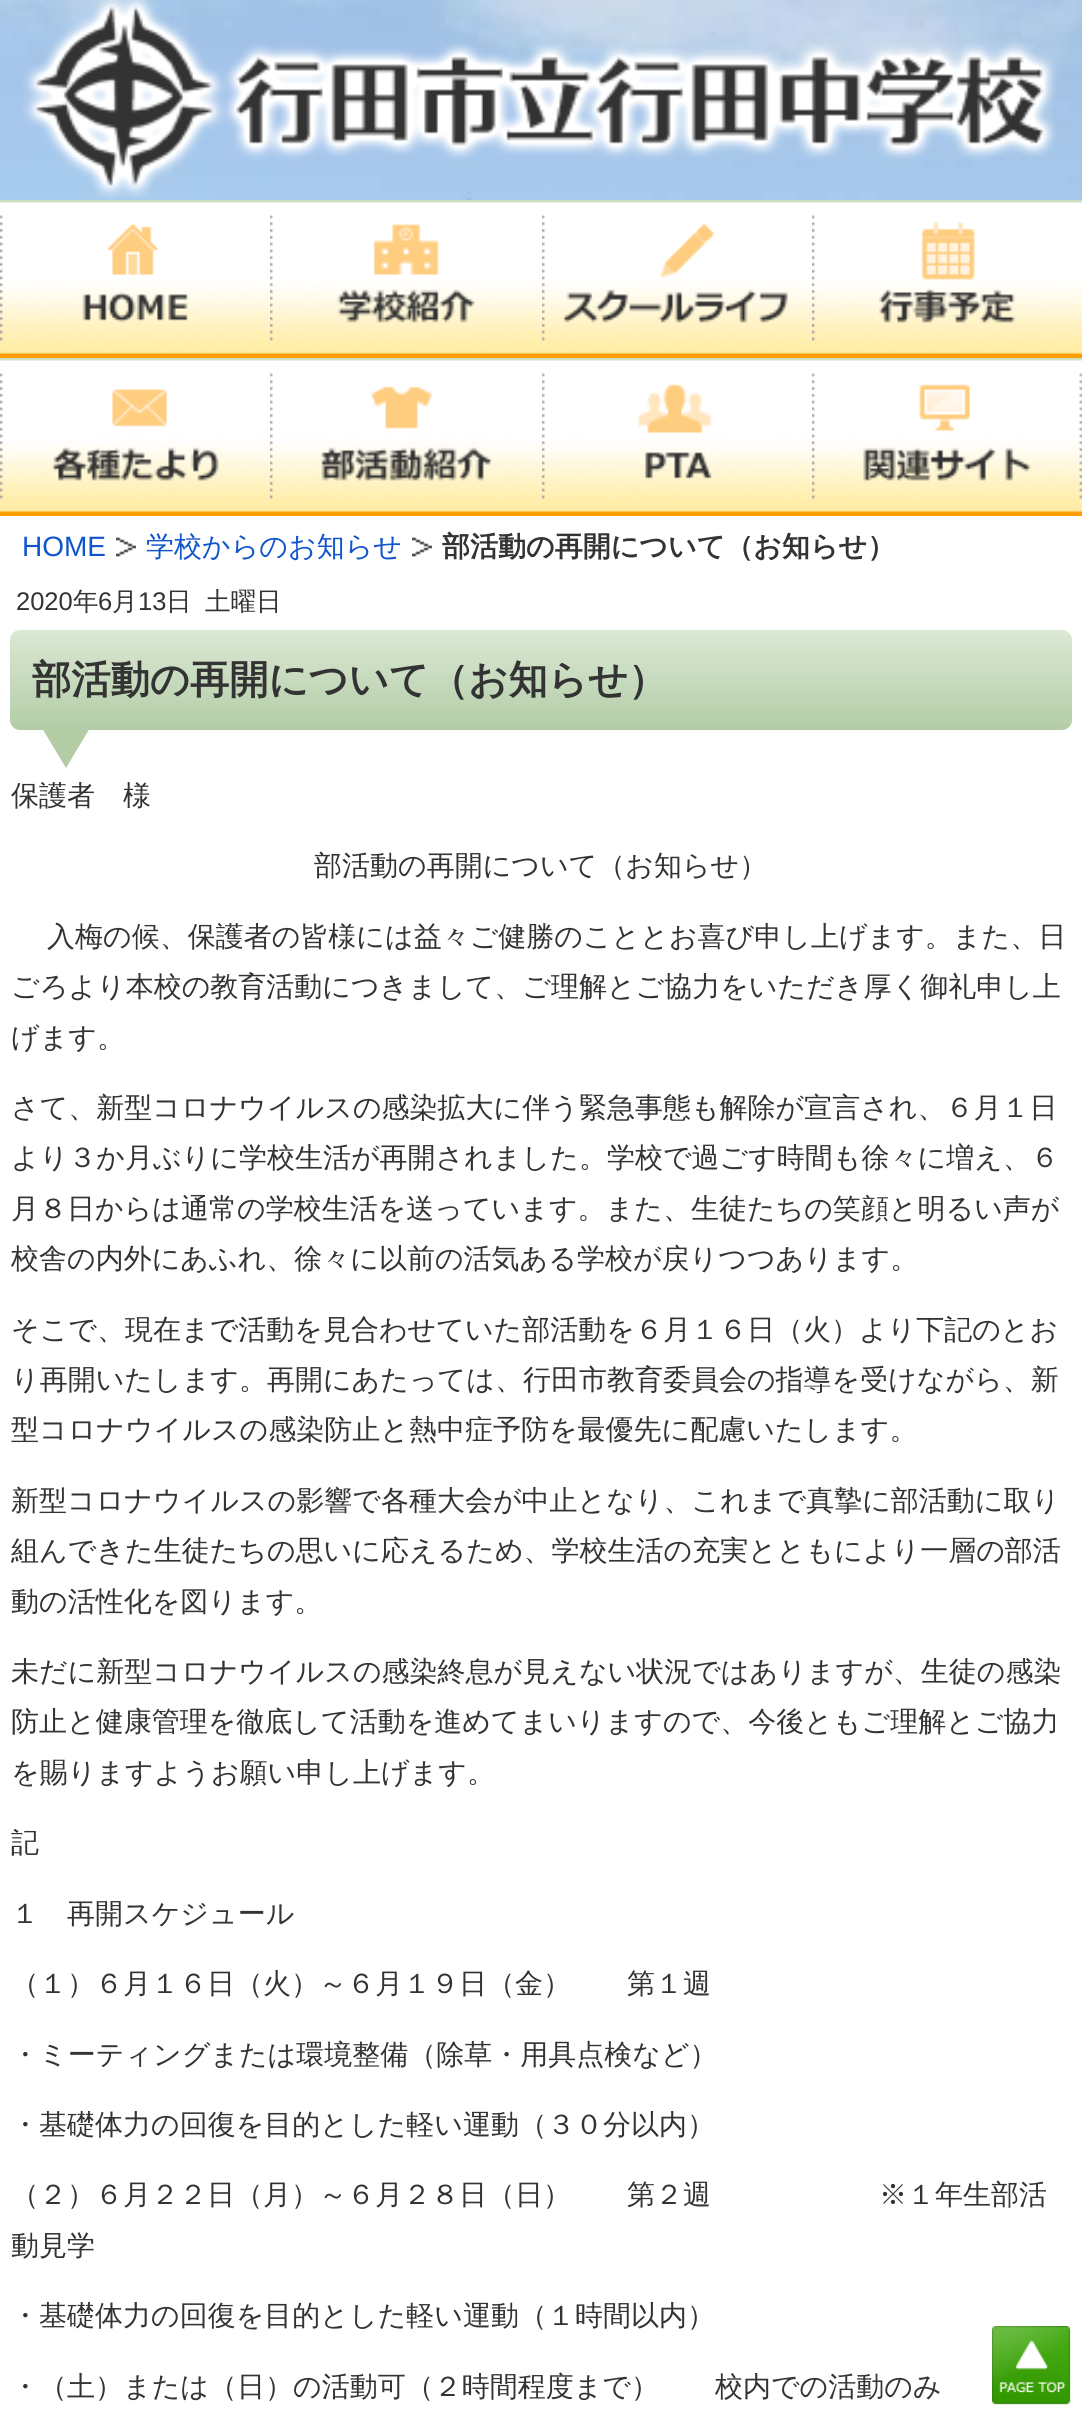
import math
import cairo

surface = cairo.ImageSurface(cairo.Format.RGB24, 1082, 2416)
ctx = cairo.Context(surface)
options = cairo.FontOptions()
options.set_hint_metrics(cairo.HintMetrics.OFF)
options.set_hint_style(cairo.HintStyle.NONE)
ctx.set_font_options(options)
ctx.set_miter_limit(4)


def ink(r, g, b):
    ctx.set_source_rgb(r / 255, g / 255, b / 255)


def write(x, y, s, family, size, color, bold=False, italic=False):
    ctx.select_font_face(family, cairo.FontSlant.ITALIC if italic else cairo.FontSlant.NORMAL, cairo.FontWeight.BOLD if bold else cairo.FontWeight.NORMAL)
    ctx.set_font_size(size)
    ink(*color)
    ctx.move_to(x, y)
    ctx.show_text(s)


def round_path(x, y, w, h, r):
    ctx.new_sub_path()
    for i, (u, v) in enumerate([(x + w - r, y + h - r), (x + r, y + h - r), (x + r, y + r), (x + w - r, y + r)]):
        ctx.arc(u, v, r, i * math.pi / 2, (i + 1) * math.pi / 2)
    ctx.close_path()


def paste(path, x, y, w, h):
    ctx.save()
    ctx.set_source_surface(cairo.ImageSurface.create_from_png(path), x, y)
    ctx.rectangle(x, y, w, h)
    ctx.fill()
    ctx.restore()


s1 = dict(family="Liberation Sans", size=28, color=(17, 85, 204))
s2 = dict(family="WenQuanYi Zen Hei Medium", size=28, color=(17, 85, 204))
s3 = dict(family="WenQuanYi Zen Hei", size=28, color=(51, 51, 51), bold=True)
s4 = dict(family="Liberation Sans", size=25.5, color=(51, 51, 51))
s5 = dict(family="WenQuanYi Zen Hei Medium", size=25.5, color=(51, 51, 51))
s6 = dict(family="WenQuanYi Zen Hei", size=39.25, color=(51, 51, 51), bold=True)
s7 = dict(family="WenQuanYi Zen Hei Medium", size=28, color=(51, 51, 51))

ink(255, 255, 255)
ctx.paint()
paste("pic1.png", 0, 0, 1082, 200)
paste("pic2.png", 22, 0, 1035, 200)
paste("pic3.png", 0, 200, 270, 158)
paste("pic4.png", 270, 200, 272, 158)
paste("pic5.png", 542, 200, 270, 158)
paste("pic6.png", 812, 200, 270, 158)
paste("pic7.png", 0, 358, 270, 158)
paste("pic8.png", 270, 358, 272, 158)
paste("pic9.png", 542, 358, 270, 158)
paste("pic10.png", 812, 358, 270, 158)
write(22, 556, "HOME", **s1)
paste("pic11.png", 116, 537, 20, 20)
write(146, 556, "学校からのお知らせ", **s2)
paste("pic11.png", 412, 537, 20, 20)
write(442, 556, "部活動の再開について（お知らせ）", **s3)
write(16, 610, "2020", **s4)
write(73, 610, "年", **s5)
write(98, 610, "6", **s4)
write(112, 610, "月", **s5)
write(138, 610, "13", **s4)
write(166, 610, "日", **s5)
write(205, 610, "土曜日", **s5)
gradient = cairo.LinearGradient(541, 630, 541, 730)
gradient.add_color_stop_rgba(0, 0.859, 0.91, 0.835, 1)
gradient.add_color_stop_rgba(1, 0.702, 0.8, 0.651, 1)
ctx.set_source(gradient)
round_path(10, 630, 1062, 100, 10)
ctx.fill()
write(32, 693, "部活動の再開について（お知らせ）", **s6)
ink(179, 204, 166)
ctx.new_path()
ctx.move_to(42, 728)
ctx.line_to(90, 728)
ctx.line_to(66, 768)
ctx.close_path()
ctx.fill()
write(11, 805, "保護者　様", **s7)
write(314, 875, "部活動の再開について（お知らせ）", **s7)
write(47, 946, "入梅の候、保護者の皆様には益々ご健勝のこととお喜び申し上げます。また、日", **s7)
write(11, 996, "ごろより本校の教育活動につきまして、ご理解とご協力をいただき厚く御礼申し上", **s7)
write(11, 1047, "げます。", **s7)
write(11, 1117, "さて、新型コロナウイルスの感染拡大に伴う緊急事態も解除が宣言され、６月１日", **s7)
write(11, 1167, "より３か月ぶりに学校生活が再開されました。学校で過ごす時間も徐々に増え、６", **s7)
write(11, 1218, "月８日からは通常の学校生活を送っています。また、生徒たちの笑顔と明るい声が", **s7)
write(11, 1268, "校舎の内外にあふれ、徐々に以前の活気ある学校が戻りつつあります。", **s7)
write(11, 1339, "そこで、現在まで活動を見合わせていた部活動を６月１６日（火）より下記のとお", **s7)
write(11, 1389, "り再開いたします。再開にあたっては、行田市教育委員会の指導を受けながら、新", **s7)
write(11, 1439, "型コロナウイルスの感染防止と熱中症予防を最優先に配慮いたします。", **s7)
write(11, 1510, "新型コロナウイルスの影響で各種大会が中止となり、これまで真摯に部活動に取り", **s7)
write(11, 1560, "組んできた生徒たちの思いに応えるため、学校生活の充実とともにより一層の部活", **s7)
write(11, 1611, "動の活性化を図ります。", **s7)
write(11, 1681, "未だに新型コロナウイルスの感染終息が見えない状況ではありますが、生徒の感染", **s7)
write(11, 1731, "防止と健康管理を徹底して活動を進めてまいりますので、今後ともご理解とご協力", **s7)
write(11, 1782, "を賜りますようお願い申し上げます。", **s7)
write(11, 1852, "記", **s7)
write(11, 1923, "１　再開スケジュール", **s7)
write(11, 1993, "（１）６月１６日（火）～６月１９日（金）　　第１週", **s7)
write(11, 2064, "・ミーティングまたは環境整備（除草・用具点検など）", **s7)
write(11, 2134, "・基礎体力の回復を目的とした軽い運動（３０分以内）", **s7)
write(11, 2204, "（２）６月２２日（月）～６月２８日（日）　　第２週　　　　　　※１年生部活", **s7)
write(11, 2255, "動見学", **s7)
write(11, 2325, "・基礎体力の回復を目的とした軽い運動（１時間以内）", **s7)
write(11, 2396, "・（土）または（日）の活動可（２時間程度まで）　　校内での活動のみ", **s7)
paste("pic12.png", 992, 2326, 79, 79)
surface.write_to_png("screenshot.png")
